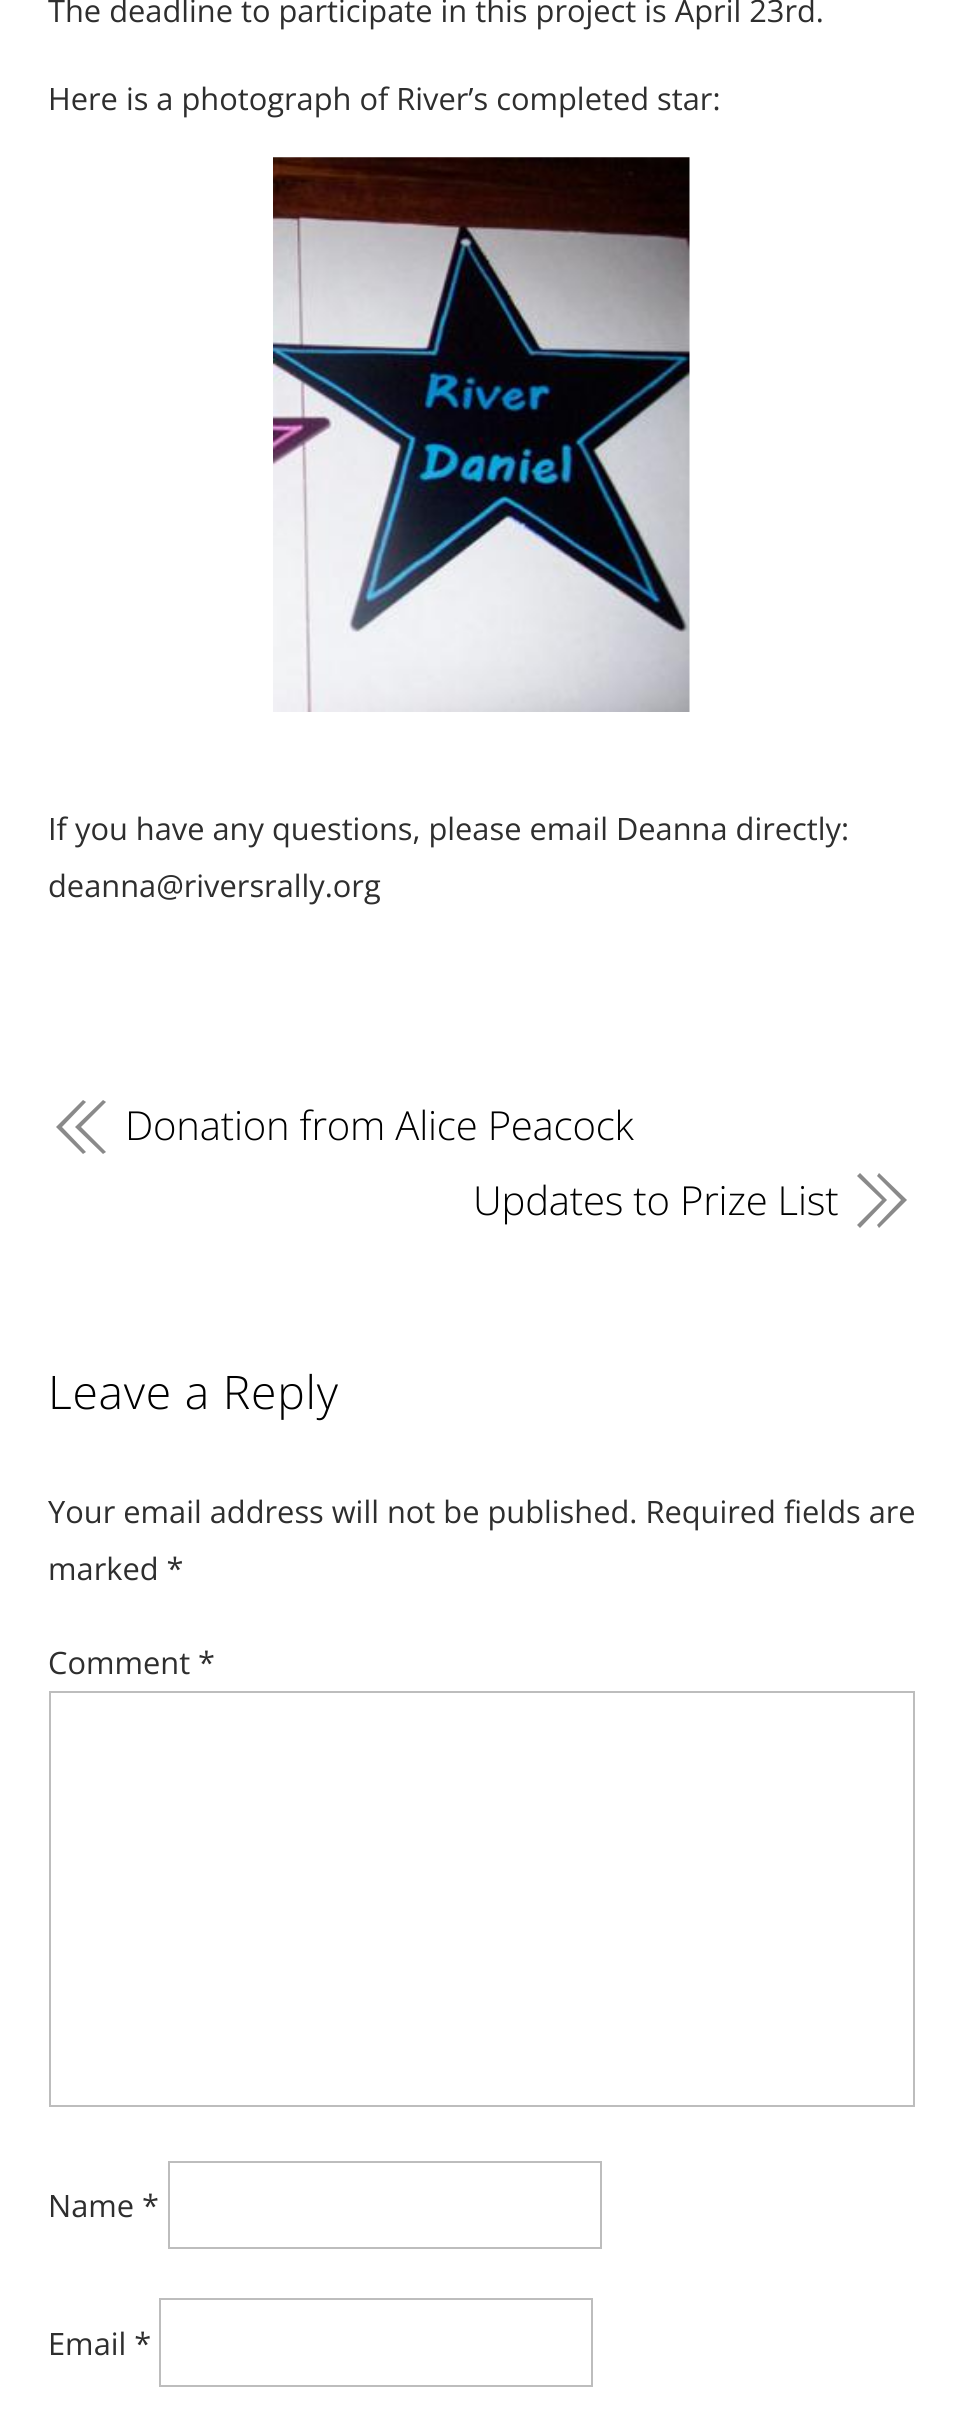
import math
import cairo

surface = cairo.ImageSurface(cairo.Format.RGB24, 963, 2427)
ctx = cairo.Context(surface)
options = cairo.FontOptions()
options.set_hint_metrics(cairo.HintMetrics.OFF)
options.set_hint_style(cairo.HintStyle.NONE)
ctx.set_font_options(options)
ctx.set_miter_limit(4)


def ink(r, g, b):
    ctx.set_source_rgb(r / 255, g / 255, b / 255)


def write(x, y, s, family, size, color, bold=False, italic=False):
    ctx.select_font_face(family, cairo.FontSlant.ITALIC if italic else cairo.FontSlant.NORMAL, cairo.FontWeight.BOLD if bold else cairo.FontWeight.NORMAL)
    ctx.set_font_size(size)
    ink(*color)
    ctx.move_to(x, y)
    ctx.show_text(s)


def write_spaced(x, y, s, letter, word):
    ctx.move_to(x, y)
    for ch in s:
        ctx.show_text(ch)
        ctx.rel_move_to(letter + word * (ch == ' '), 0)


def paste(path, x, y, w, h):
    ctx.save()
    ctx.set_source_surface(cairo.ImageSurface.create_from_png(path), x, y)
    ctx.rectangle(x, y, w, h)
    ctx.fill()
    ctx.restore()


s1 = dict(family="Open Sans", size=30.8, color=(46, 46, 46))

ink(255, 255, 255)
ctx.paint()
write(48, 22, "The deadline to participate in this project is April 23rd.", **s1)
write(48, 110, "Here is a photograph of River’s completed star:", **s1)
paste("pic1.png", 273, 157, 417, 555)
write(48, 840, "If you have any questions, please email Deanna directly:", **s1)
write(48, 897, "deanna@riversrally.org", **s1)
ink(138, 138, 138)
ctx.new_path()
ctx.move_to(81, 1127)
ctx.line_to(106, 1152)
ctx.line_to(103, 1154)
ctx.line_to(75, 1127)
ctx.line_to(103, 1100)
ctx.line_to(106, 1102)
ctx.close_path()
ctx.move_to(86, 1102)
ctx.line_to(83, 1100)
ctx.line_to(56, 1127)
ctx.line_to(83, 1154)
ctx.line_to(86, 1152)
ctx.line_to(62, 1127)
ctx.close_path()
ctx.fill()
ctx.select_font_face("Open Sans Light")
ctx.set_font_size(40)
ink(0, 0, 0)
write_spaced(125, 1140, "Donation from Alice Peacock", -0.2, 0)
write_spaced(473, 1215, "Updates to Prize List", -0.2, 0)
ink(138, 138, 138)
ctx.new_path()
ctx.move_to(887, 1200)
ctx.line_to(860, 1228)
ctx.line_to(857, 1225)
ctx.line_to(882, 1200)
ctx.line_to(857, 1176)
ctx.line_to(860, 1173)
ctx.close_path()
ctx.move_to(879, 1173)
ctx.line_to(877, 1176)
ctx.line_to(901, 1200)
ctx.line_to(877, 1225)
ctx.line_to(879, 1228)
ctx.line_to(907, 1200)
ctx.close_path()
ctx.fill()
ctx.set_font_size(46.25)
ink(0, 0, 0)
write_spaced(48, 1409, "Leave a Reply", 0.75, 0)
write(48, 1523, "Your email address will not be published. Required fields are", **s1)
write(48, 1580, "marked *", **s1)
write(48, 1674, "Comment *", **s1)
ctx.rectangle(50, 1692, 864, 414)
ink(189, 189, 189)
ctx.stroke()
write(48, 2217, "Name *", **s1)
ctx.rectangle(169, 2162, 432, 86)
ink(189, 189, 189)
ctx.stroke()
write(48, 2355, "Email *", **s1)
ctx.rectangle(160, 2299, 432, 87)
ink(189, 189, 189)
ctx.stroke()
surface.write_to_png("screenshot.png")
